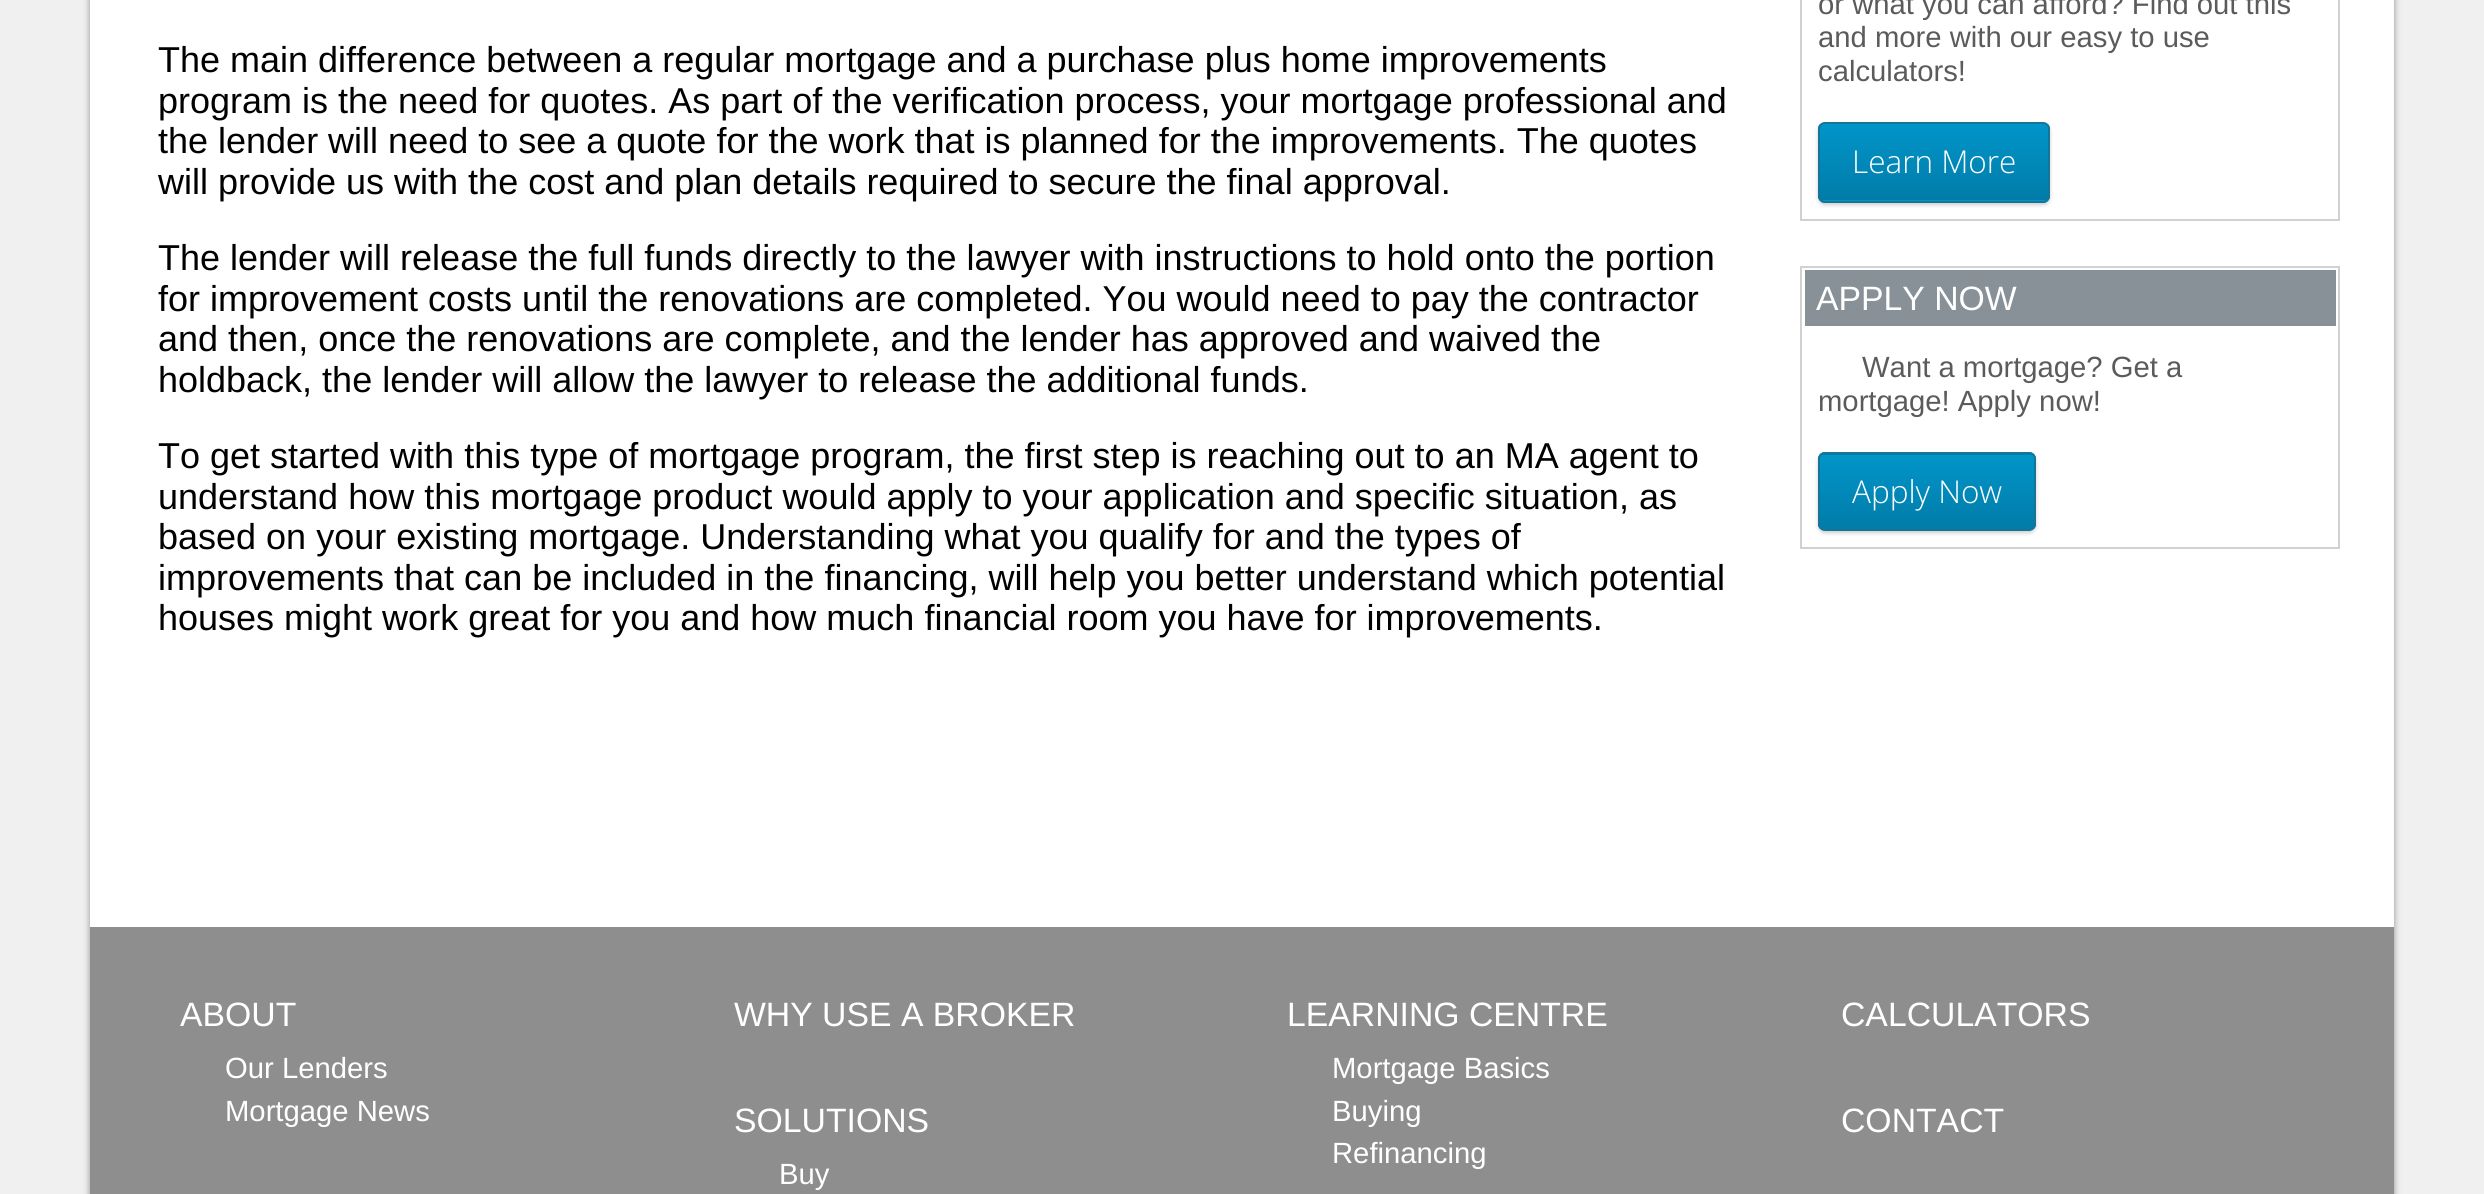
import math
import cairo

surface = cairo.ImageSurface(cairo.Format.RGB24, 2484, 1194)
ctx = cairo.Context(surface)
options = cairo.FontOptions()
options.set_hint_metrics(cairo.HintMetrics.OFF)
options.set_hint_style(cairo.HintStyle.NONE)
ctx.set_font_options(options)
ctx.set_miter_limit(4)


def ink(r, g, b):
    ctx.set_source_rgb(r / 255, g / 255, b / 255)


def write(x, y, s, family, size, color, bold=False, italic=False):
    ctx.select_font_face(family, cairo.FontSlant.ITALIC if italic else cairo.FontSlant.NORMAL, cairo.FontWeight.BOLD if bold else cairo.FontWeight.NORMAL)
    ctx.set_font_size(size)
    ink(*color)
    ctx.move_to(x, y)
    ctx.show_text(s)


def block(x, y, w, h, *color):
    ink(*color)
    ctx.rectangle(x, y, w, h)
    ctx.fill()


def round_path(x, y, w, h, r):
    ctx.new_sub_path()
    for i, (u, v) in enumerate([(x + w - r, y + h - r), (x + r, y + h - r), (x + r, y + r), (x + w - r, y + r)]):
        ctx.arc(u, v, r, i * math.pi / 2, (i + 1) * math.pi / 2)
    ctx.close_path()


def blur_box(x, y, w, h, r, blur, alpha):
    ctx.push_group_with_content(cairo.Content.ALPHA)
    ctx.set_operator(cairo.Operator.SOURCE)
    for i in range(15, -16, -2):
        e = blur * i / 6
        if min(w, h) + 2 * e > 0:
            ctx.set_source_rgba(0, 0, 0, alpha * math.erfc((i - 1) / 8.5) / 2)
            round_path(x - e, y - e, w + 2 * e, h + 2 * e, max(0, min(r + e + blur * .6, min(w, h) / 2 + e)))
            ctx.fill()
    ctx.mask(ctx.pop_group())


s1 = dict(family="Liberation Sans", size=36, color=(0, 0, 0))
s2 = dict(family="Liberation Sans", size=29.25, color=(91, 91, 91))
s3 = dict(family="Open Sans Light", size=31.5, color=(255, 255, 255))
s4 = dict(family="Liberation Sans", size=33.75, color=(255, 255, 255))
s5 = dict(family="Liberation Sans", size=29.25, color=(255, 255, 255))

ink(240, 240, 240)
ctx.paint()
ink(1, 1, 1)
blur_box(90, -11, 2304, 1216, 0, 3.5, 0.4)
block(90, 0, 2304, 927, 255, 255, 255)
write(158, 72, "The main difference between a regular mortgage and a purchase plus home improvements", **s1)
write(158, 113, "program is the need for quotes. As part of the verification process, your mortgage professional and", **s1)
write(158, 153, "the lender will need to see a quote for the work that is planned for the improvements. The quotes", **s1)
write(158, 194, "will provide us with the cost and plan details required to secure the final approval.", **s1)
write(158, 270, "The lender will release the full funds directly to the lawyer with instructions to hold onto the portion", **s1)
write(158, 311, "for improvement costs until the renovations are completed. You would need to pay the contractor", **s1)
write(158, 351, "and then, once the renovations are complete, and the lender has approved and waived the", **s1)
write(158, 392, "holdback, the lender will allow the lawyer to release the additional funds.", **s1)
write(158, 468, "To get started with this type of mortgage program, the first step is reaching out to an MA agent to", **s1)
write(158, 509, "understand how this mortgage product would apply to your application and specific situation, as", **s1)
write(158, 549, "based on your existing mortgage. Understanding what you qualify for and the types of", **s1)
write(158, 590, "improvements that can be included in the financing, will help you better understand which potential", **s1)
write(158, 630, "houses might work great for you and how much financial room you have for improvements.", **s1)
ctx.rectangle(1801, -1, 538, 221)
ink(209, 209, 209)
ctx.stroke()
write(1818, 14, "or what you can afford? Find out this", **s2)
write(1818, 47, "and more with our easy to use", **s2)
write(1818, 81, "calculators!", **s2)
ink(0, 0, 0)
blur_box(1818, 124, 232, 81, 7, 2, 0.2)
ctx.save()
round_path(1818, 122, 232, 81, 7)
ctx.clip()
gradient = cairo.LinearGradient(1820, 124, 1820, 200)
gradient.add_color_stop_rgba(0, 0.004, 0.584, 0.788, 1)
gradient.add_color_stop_rgba(1, 0.004, 0.486, 0.659, 1)
ctx.set_source(gradient)
ctx.rectangle(1818, 124, 232, 76)
ctx.fill()
gradient = cairo.LinearGradient(1820, 200, 1820, 277)
gradient.add_color_stop_rgba(0, 0.004, 0.584, 0.788, 1)
gradient.add_color_stop_rgba(1, 0.004, 0.486, 0.659, 1)
ctx.set_source(gradient)
ctx.rectangle(1818, 200, 232, 3)
ctx.fill()
ctx.restore()
round_path(1819, 123, 230, 79, 6)
ink(21, 117, 153)
ctx.stroke()
write(1852, 173, "Learn More", **s3)
ctx.rectangle(1801, 267, 538, 281)
ink(209, 209, 209)
ctx.stroke()
block(1805, 270, 531, 56, 136, 145, 151)
write(1816, 310, "APPLY NOW", **s4)
write(1862, 377, "Want a mortgage? Get a", **s2)
write(1818, 411, "mortgage! Apply now!", **s2)
ink(0, 0, 0)
blur_box(1818, 455, 218, 78, 7, 2, 0.2)
ctx.save()
round_path(1818, 452, 218, 79, 7)
ctx.clip()
gradient = cairo.LinearGradient(1820, 380, 1820, 455)
gradient.add_color_stop_rgba(0, 0.004, 0.584, 0.788, 1)
gradient.add_color_stop_rgba(1, 0.004, 0.486, 0.659, 1)
ctx.set_source(gradient)
ctx.rectangle(1818, 452, 218, 3)
ctx.fill()
gradient = cairo.LinearGradient(1820, 455, 1820, 529)
gradient.add_color_stop_rgba(0, 0.004, 0.584, 0.788, 1)
gradient.add_color_stop_rgba(1, 0.004, 0.486, 0.659, 1)
ctx.set_source(gradient)
ctx.rectangle(1818, 455, 218, 74)
ctx.fill()
ctx.restore()
round_path(1819, 453, 216, 77, 6)
ink(21, 117, 153)
ctx.stroke()
write(1852, 503, "Apply Now", **s3)
block(90, 927, 2304, 267, 142, 142, 142)
write(180, 1026, "ABOUT", **s4)
write(225, 1078, "Our Lenders", **s5)
write(225, 1121, "Mortgage News", **s5)
write(734, 1026, "WHY USE A BROKER", **s4)
write(734, 1132, "SOLUTIONS", **s4)
write(779, 1184, "Buy", **s5)
write(1287, 1026, "LEARNING CENTRE", **s4)
write(1332, 1078, "Mortgage Basics", **s5)
write(1332, 1121, "Buying", **s5)
write(1332, 1163, "Refinancing", **s5)
write(1841, 1026, "CALCULATORS", **s4)
write(1841, 1132, "CONTACT", **s4)
surface.write_to_png("screenshot.png")
